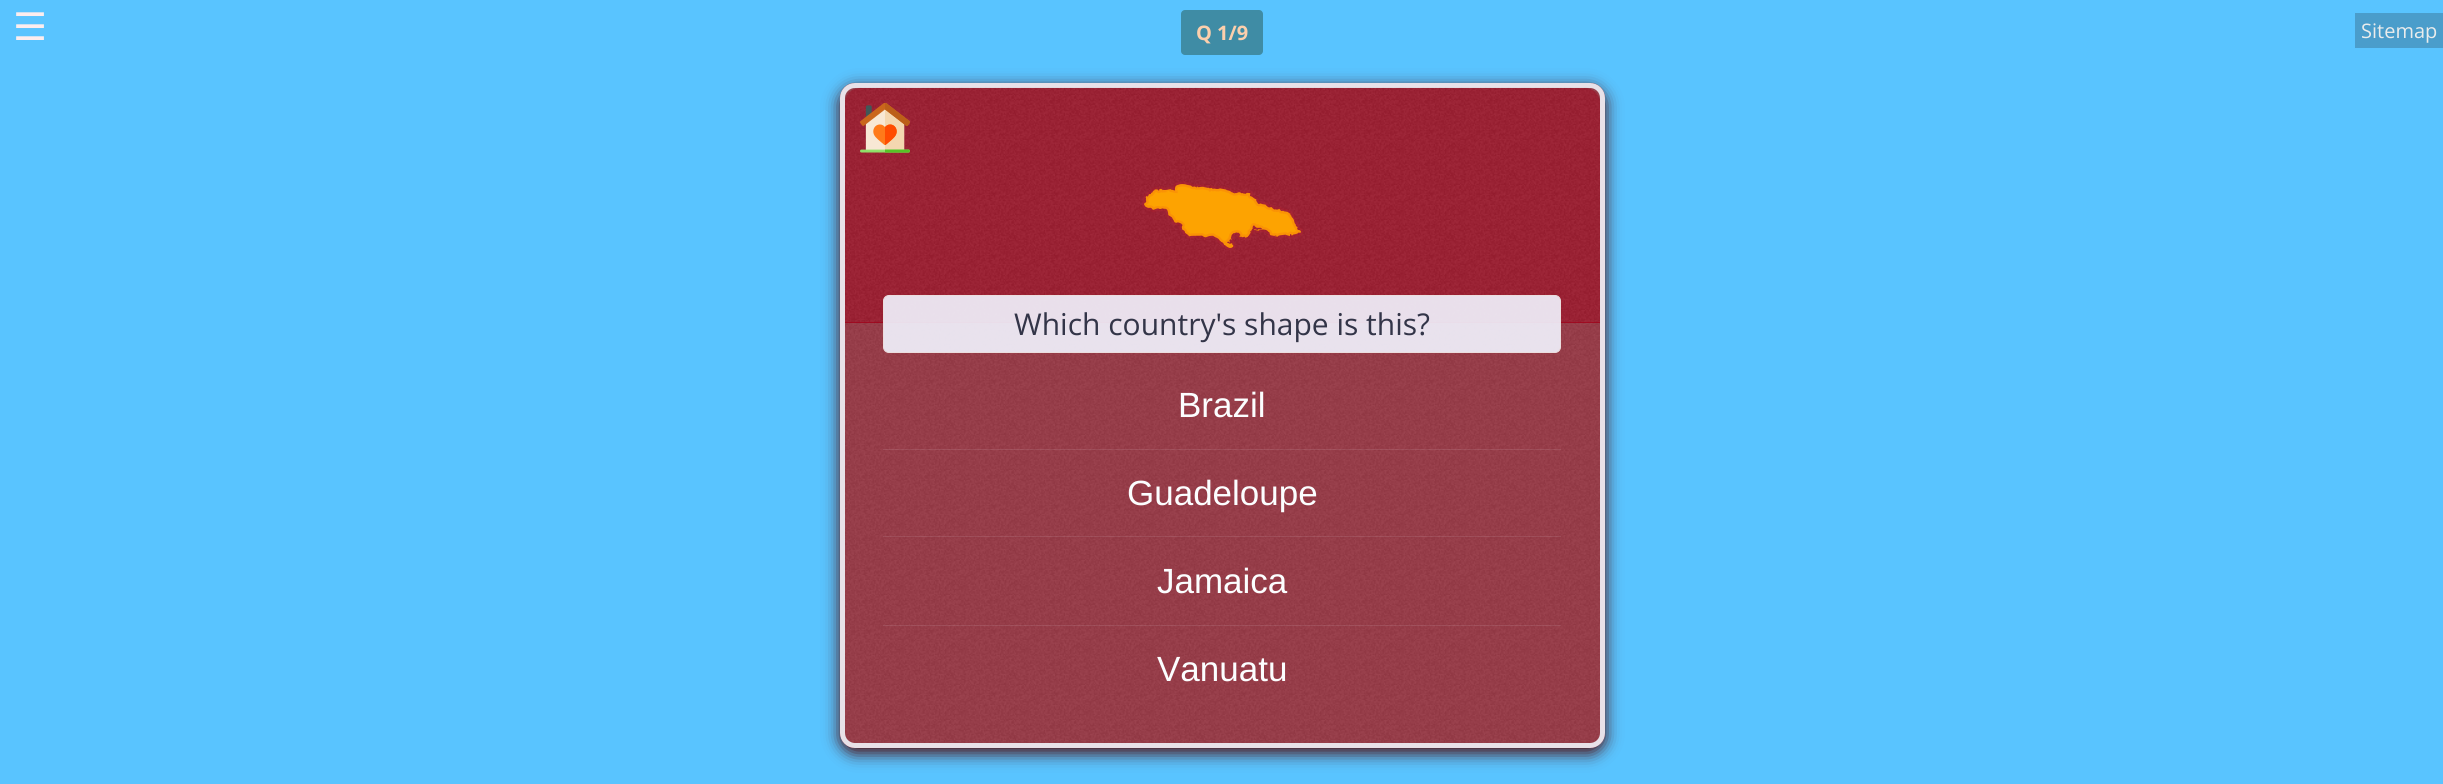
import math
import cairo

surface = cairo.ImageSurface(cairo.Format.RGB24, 2443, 784)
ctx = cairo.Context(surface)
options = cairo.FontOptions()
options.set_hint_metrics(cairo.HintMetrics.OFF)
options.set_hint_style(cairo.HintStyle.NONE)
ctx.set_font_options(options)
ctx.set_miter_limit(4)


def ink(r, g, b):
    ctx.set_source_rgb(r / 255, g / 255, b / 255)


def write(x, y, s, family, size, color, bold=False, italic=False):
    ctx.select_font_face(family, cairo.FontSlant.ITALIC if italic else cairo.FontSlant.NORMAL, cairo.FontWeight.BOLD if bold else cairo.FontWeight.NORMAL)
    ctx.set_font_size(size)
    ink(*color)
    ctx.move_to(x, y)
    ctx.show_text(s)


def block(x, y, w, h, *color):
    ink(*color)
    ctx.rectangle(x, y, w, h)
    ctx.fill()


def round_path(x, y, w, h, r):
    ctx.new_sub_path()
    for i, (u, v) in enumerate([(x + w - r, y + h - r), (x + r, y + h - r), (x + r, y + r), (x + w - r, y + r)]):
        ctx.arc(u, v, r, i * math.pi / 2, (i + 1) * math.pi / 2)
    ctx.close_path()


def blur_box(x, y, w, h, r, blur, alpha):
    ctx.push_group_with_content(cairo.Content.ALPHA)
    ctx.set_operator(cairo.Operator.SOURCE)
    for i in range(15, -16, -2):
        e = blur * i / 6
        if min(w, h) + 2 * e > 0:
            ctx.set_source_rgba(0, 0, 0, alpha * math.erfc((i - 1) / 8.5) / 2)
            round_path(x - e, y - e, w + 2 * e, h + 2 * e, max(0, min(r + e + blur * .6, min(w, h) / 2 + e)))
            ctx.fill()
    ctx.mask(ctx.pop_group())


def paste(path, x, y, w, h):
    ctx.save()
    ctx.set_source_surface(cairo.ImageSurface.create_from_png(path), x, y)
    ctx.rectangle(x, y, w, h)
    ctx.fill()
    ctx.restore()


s1 = dict(family="DejaVu Sans", size=38, color=(252, 237, 238))
s2 = dict(family="Open Sans", size=20, color=(252, 207, 172), bold=True)
s3 = dict(family="Open Sans", size=20, color=(234, 236, 236))
s4 = dict(family="Open Sans", size=30, color=(51, 53, 72))
s5 = dict(family="Liberation Sans", size=35, color=(252, 254, 255))

ink(89, 196, 255)
ctx.paint()
write(13, 40, "☰", **s1)
ink(63, 140, 165)
round_path(1181, 10, 82, 45, 4)
ctx.fill()
write(1196, 40, "Q 1/9", **s2)
block(2355, 13, 88, 35, 74, 157, 203)
write(2361, 38, "Sitemap", **s3)
ink(77, 4, 5)
blur_box(840, 88, 765, 665, 15, 8, 1)
ink(157, 39, 56)
round_path(840, 83, 765, 665, 15)
ctx.fill()
paste("pic1.png", 840, 82, 765, 666)
round_path(842.5, 85.5, 760, 660, 12.5)
ctx.set_source_rgba(0.945, 0.953, 0.98, 0.9)
ctx.set_line_width(5)
ctx.stroke()
ink(162, 4, 28)
ctx.new_path()
ctx.move_to(860, 88)
ctx.line_to(1585, 88)
ctx.curve_to(1593.5, 88, 1600, 94.5, 1600, 103)
ctx.line_to(1600, 323)
ctx.line_to(845, 323)
ctx.line_to(845, 103)
ctx.curve_to(845, 94.5, 851.5, 88, 860, 88)
ctx.close_path()
ctx.fill()
paste("pic3.png", 845, 87, 755, 236)
paste("pic2.png", 860, 103, 50, 50)
paste("pic4.png", 1142, 181, 161, 69)
ctx.set_source_rgba(0.949, 0.957, 1, 0.9)
round_path(883.5, 295.5, 677, 57, 5.5)
ctx.fill_preserve()
ink(235, 221, 222)
ctx.set_line_width(1)
ctx.stroke()
write(1014, 335, "Which country's shape is this?", **s4)
ctx.set_source_rgba(0.949, 0.957, 1, 0.1)
ctx.rectangle(883, 449, 678, 1)
ctx.fill()
write(1178, 417, "Brazil", **s5)
ctx.set_source_rgba(0.949, 0.957, 1, 0.1)
ctx.rectangle(883, 536, 678, 1)
ctx.fill()
write(1127, 505, "Guadeloupe", **s5)
ctx.set_source_rgba(0.949, 0.957, 1, 0.1)
ctx.rectangle(883, 625, 678, 1)
ctx.fill()
write(1157, 593, "Jamaica", **s5)
write(1157, 681, "Vanuatu", **s5)
surface.write_to_png("screenshot.png")
